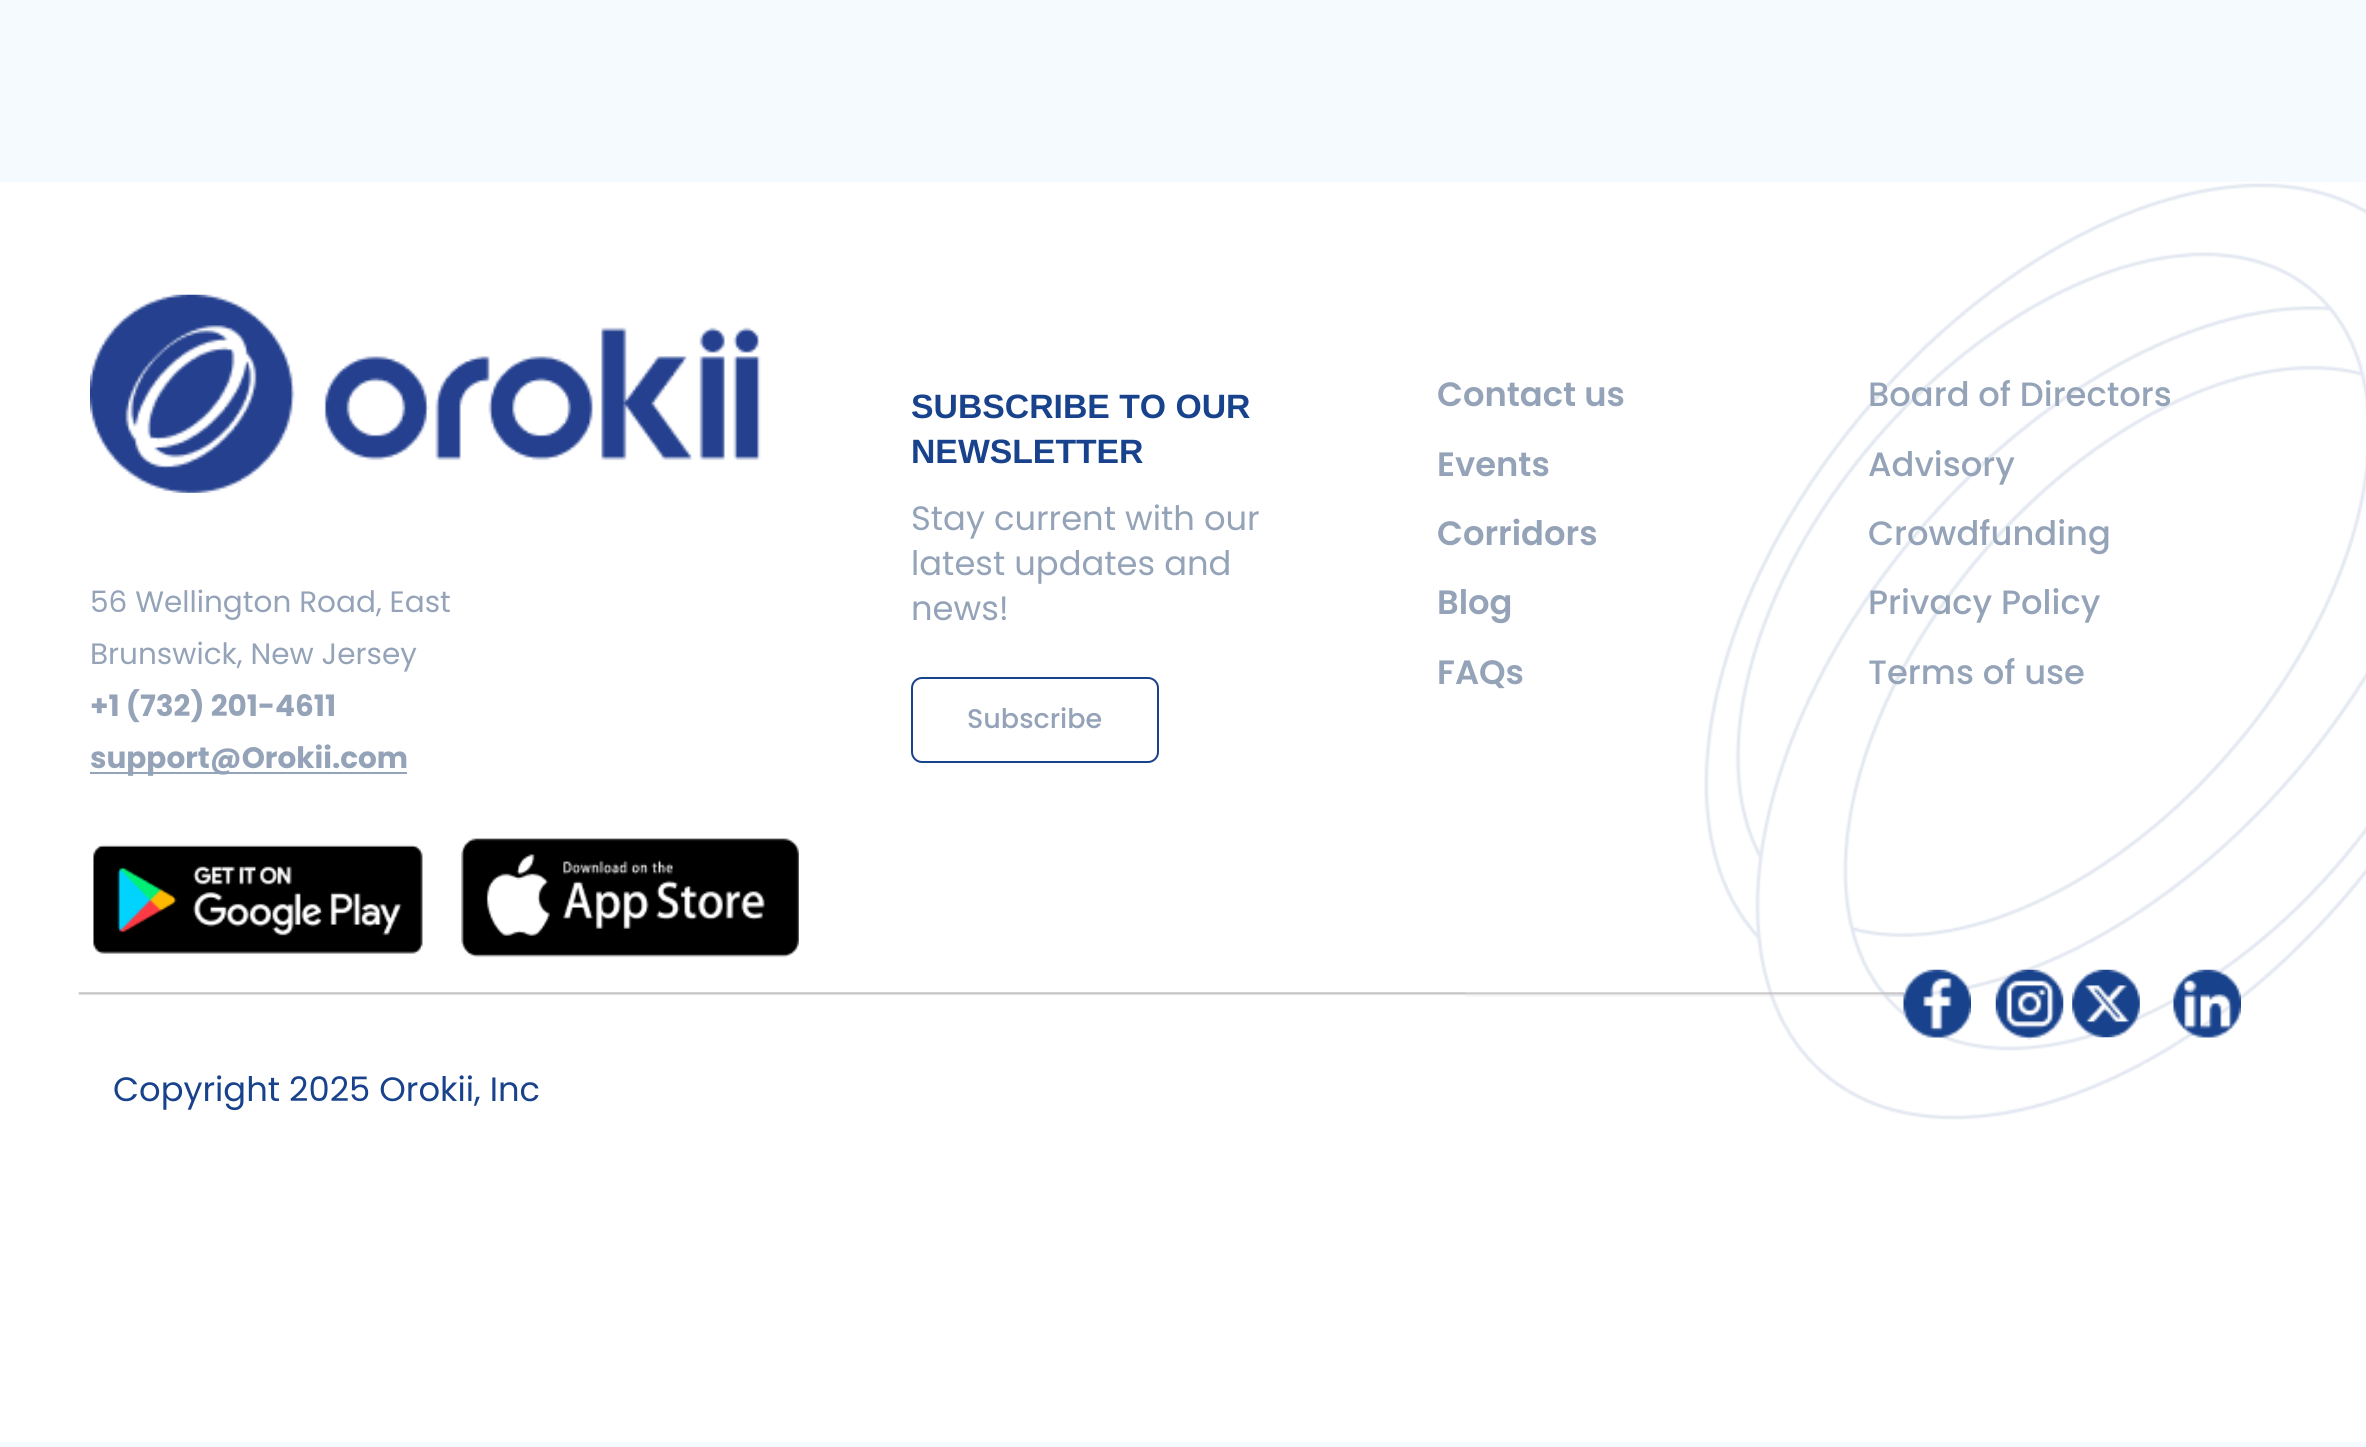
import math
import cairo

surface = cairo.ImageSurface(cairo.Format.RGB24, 2366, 1447)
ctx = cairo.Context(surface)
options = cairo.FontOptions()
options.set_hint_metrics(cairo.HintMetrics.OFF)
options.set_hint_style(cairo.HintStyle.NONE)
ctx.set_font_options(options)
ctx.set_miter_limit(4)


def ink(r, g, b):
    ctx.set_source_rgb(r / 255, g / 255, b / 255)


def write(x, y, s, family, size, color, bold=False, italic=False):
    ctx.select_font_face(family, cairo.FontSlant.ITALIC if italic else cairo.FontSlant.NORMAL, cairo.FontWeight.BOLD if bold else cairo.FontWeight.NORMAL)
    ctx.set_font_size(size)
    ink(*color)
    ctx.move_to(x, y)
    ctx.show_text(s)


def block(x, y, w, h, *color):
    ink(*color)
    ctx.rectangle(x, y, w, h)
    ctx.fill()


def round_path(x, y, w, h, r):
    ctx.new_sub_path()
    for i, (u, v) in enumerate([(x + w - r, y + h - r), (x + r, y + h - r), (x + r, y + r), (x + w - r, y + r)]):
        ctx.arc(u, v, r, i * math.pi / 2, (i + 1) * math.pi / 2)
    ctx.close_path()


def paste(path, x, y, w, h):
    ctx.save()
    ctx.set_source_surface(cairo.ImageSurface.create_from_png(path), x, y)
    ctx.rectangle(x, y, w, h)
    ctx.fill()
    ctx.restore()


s1 = dict(family="Poppins", size=29.5, color=(148, 163, 184))
s2 = dict(family="Poppins", size=29.5, color=(148, 163, 184), bold=True)
s3 = dict(family="Poppins", size=33.75, color=(24, 66, 140))
s4 = dict(family="Liberation Sans", size=33.75, color=(24, 66, 140), bold=True)
s5 = dict(family="Poppins", size=33.75, color=(148, 163, 184))
s6 = dict(family="Poppins Medium", size=27, color=(148, 163, 184))
s7 = dict(family="Poppins SemiBold", size=33.75, color=(148, 163, 184))
s8 = dict(family="Poppins Medium", size=33.75, color=(148, 163, 184))

ink(244, 250, 254)
ctx.paint()
block(0, 182, 2366, 1260, 255, 255, 255)
paste("pic1.png", 1704, 183, 662, 937)
paste("pic2.png", 90, 294, 671, 199)
write(90, 612, "56 Wellington Road, East", **s1)
write(90, 664, "Brunswick, New Jersey", **s1)
write(90, 716, "+1 (732) 201-4611", **s2)
block(90, 772, 317, 2, 148, 163, 184)
write(90, 768, "support@Orokii.com", **s2)
paste("pic3.png", 93, 844, 330, 110)
paste("pic4.png", 461, 838, 338, 120)
write(113, 1101, "Copyright 2025 Orokii, Inc", **s3)
write(911, 418, "SUBSCRIBE TO OUR", **s4)
write(911, 463, "NEWSLETTER", **s4)
write(911, 530, "Stay current with our", **s5)
write(911, 575, "latest updates and", **s5)
write(911, 620, "news!", **s5)
round_path(912, 678, 246, 84, 10)
ink(24, 66, 140)
ctx.stroke()
write(967, 728, "Subscribe", **s6)
write(1437, 406, "Contact us", **s7)
write(1437, 476, "Events", **s7)
write(1437, 545, "Corridors", **s7)
write(1437, 614, "Blog", **s7)
write(1437, 684, "FAQs", **s7)
write(1868, 406, "Board of Directors", **s8)
write(1868, 476, "Advisory", **s8)
write(1868, 545, "Crowdfunding", **s8)
write(1868, 614, "Privacy Policy", **s8)
write(1868, 684, "Terms of use", **s8)
paste("pic5.png", 78, 992, 1826, 5)
paste("pic6.png", 1903, 969, 68, 69)
paste("pic7.png", 1995, 969, 69, 71)
paste("pic8.png", 2072, 969, 68, 69)
paste("pic9.png", 2173, 969, 68, 69)
surface.write_to_png("screenshot.png")
